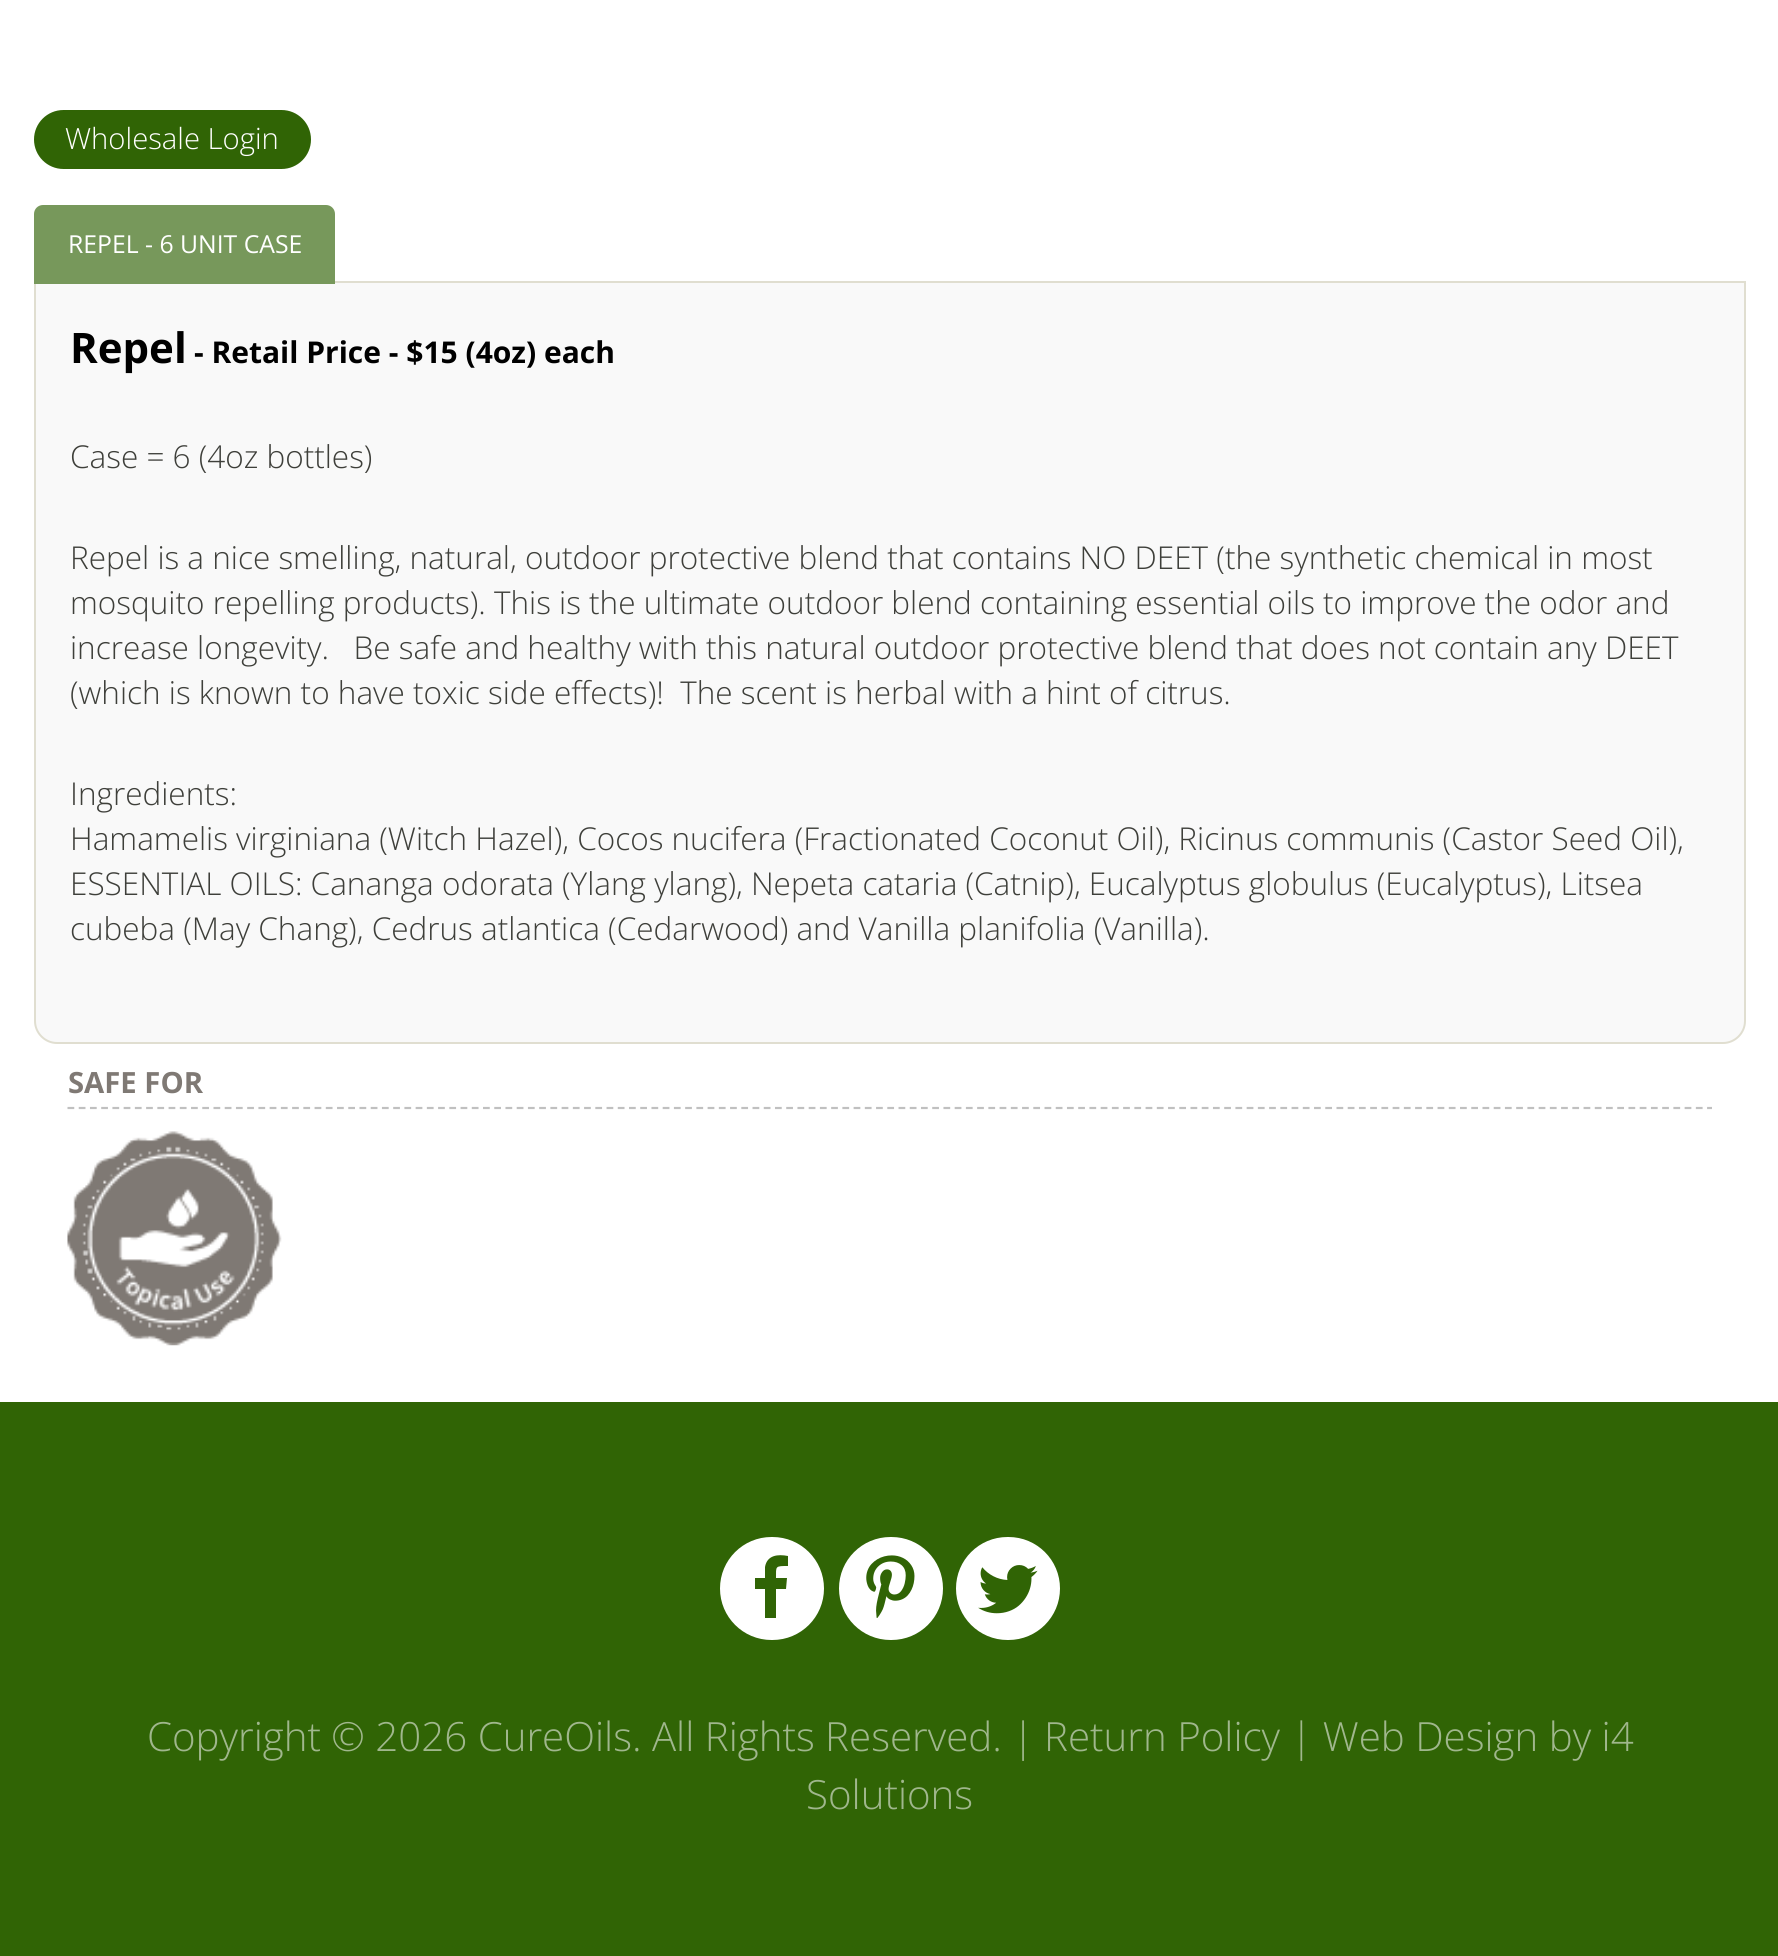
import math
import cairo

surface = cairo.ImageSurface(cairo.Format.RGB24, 1778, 1956)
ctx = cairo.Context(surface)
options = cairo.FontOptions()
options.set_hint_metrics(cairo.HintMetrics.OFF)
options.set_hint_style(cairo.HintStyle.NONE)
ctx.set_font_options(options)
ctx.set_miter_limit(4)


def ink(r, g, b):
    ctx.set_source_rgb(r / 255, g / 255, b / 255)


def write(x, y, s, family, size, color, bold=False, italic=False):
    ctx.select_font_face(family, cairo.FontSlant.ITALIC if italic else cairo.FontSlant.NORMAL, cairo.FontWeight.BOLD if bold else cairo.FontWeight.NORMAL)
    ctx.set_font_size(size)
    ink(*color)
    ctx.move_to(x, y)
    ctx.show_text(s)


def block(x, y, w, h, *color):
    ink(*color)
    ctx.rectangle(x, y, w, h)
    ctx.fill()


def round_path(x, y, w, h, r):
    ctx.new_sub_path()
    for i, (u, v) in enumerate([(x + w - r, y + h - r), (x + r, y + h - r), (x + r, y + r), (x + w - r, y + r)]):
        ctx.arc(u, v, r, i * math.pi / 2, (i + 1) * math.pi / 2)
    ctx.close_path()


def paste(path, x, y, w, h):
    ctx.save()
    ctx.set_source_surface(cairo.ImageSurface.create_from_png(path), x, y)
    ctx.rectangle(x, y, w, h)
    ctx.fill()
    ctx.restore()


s1 = dict(family="Open Sans Light", size=29.25, color=(255, 255, 255))
s2 = dict(family="Open Sans", size=24.75, color=(255, 255, 255))
s3 = dict(family="Open Sans", size=42, color=(0, 0, 0), bold=True)
s4 = dict(family="Open Sans", size=30, color=(0, 0, 0), bold=True)
s5 = dict(family="Open Sans Light", size=31.5, color=(62, 63, 58))
s6 = dict(family="Open Sans", size=29.25, color=(127, 121, 116), bold=True)
s7 = dict(family="Open Sans Light", size=40.25, color=(160, 183, 141))

ink(255, 255, 255)
ctx.paint()
ink(48, 100, 5)
round_path(35, 111, 275, 57, 28.5)
ctx.fill_preserve()
ctx.stroke()
write(65, 149, "Wholesale Login", **s1)
ink(249, 249, 249)
ctx.new_path()
ctx.move_to(35, 282)
ctx.line_to(1745, 282)
ctx.line_to(1745, 1021)
ctx.curve_to(1745, 1033, 1735, 1043, 1723, 1043)
ctx.line_to(57, 1043)
ctx.curve_to(45, 1043, 35, 1033, 35, 1021)
ctx.close_path()
ctx.fill_preserve()
ink(224, 222, 208)
ctx.stroke()
ink(119, 152, 91)
ctx.new_path()
ctx.move_to(43, 205)
ctx.line_to(326, 205)
ctx.curve_to(331, 205, 335, 209, 335, 214)
ctx.line_to(335, 284)
ctx.line_to(34, 284)
ctx.line_to(34, 214)
ctx.curve_to(34, 209, 38, 205, 43, 205)
ctx.close_path()
ctx.fill()
write(68, 253, "REPEL - 6 UNIT CASE", **s2)
write(70, 363, "Repel", **s3)
write(194, 363, "- Retail Price - $15 (4oz) each", **s4)
write(70, 468, "Case = 6 (4oz bottles)", **s5)
write(70, 569, "Repel is a nice smelling, natural, outdoor protective blend that contains NO DEET (the synthetic chemical in most", **s5)
write(70, 614, "mosquito repelling products). This is the ultimate outdoor blend containing essential oils to improve the odor and", **s5)
write(70, 659, "increase longevity.   Be safe and healthy with this natural outdoor protective blend that does not contain any DEET", **s5)
write(70, 704, "(which is known to have toxic side effects)!  The scent is herbal with a hint of citrus.", **s5)
write(70, 805, "Ingredients:", **s5)
write(70, 850, "Hamamelis virginiana (Witch Hazel), Cocos nucifera (Fractionated Coconut Oil), Ricinus communis (Castor Seed Oil),", **s5)
write(70, 895, "ESSENTIAL OILS: Cananga odorata (Ylang ylang), Nepeta cataria (Catnip), Eucalyptus globulus (Eucalyptus), Litsea", **s5)
write(70, 940, "cubeba (May Chang), Cedrus atlantica (Cedarwood) and Vanilla planifolia (Vanilla).", **s5)
ctx.new_path()
ctx.move_to(67.5, 1108)
ctx.line_to(1712, 1108)
ink(192, 192, 192)
ctx.set_line_width(2.2)
ctx.set_dash([6.75, 4.48])
ctx.stroke()
write(68, 1093, "SAFE FOR", **s6)
paste("pic1.png", 67, 1131, 215, 215)
block(0, 1402, 1778, 554, 48, 100, 5)
ink(255, 255, 255)
round_path(720, 1537, 104, 103, 51.5)
ctx.fill()
ink(48, 100, 5)
ctx.new_path()
ctx.move_to(788, 1556)
ctx.line_to(788, 1566)
ctx.curve_to(775, 1566, 776, 1566, 776, 1578)
ctx.line_to(787, 1578)
ctx.line_to(786, 1589)
ctx.line_to(776, 1589)
ctx.line_to(776, 1618)
ctx.line_to(765, 1618)
ctx.line_to(765, 1589)
ctx.line_to(755, 1589)
ctx.line_to(755, 1578)
ctx.line_to(765, 1578)
ctx.line_to(765, 1567)
ctx.curve_to(767, 1555, 778, 1554, 788, 1556)
ctx.close_path()
ctx.fill()
ink(255, 255, 255)
round_path(839, 1537, 104, 103, 51.5)
ctx.fill()
paste("pic2.png", 866, 1555, 49, 63)
round_path(956, 1537, 104, 103, 51.5)
ctx.fill()
paste("pic3.png", 978, 1565, 60, 49)
write(147, 1751, "Copyright © 2026 CureOils. All Rights Reserved. |", **s7)
write(1044, 1751, "Return Policy | Web Design by i4", **s7)
write(806, 1809, "Solutions", **s7)
surface.write_to_png("screenshot.png")
